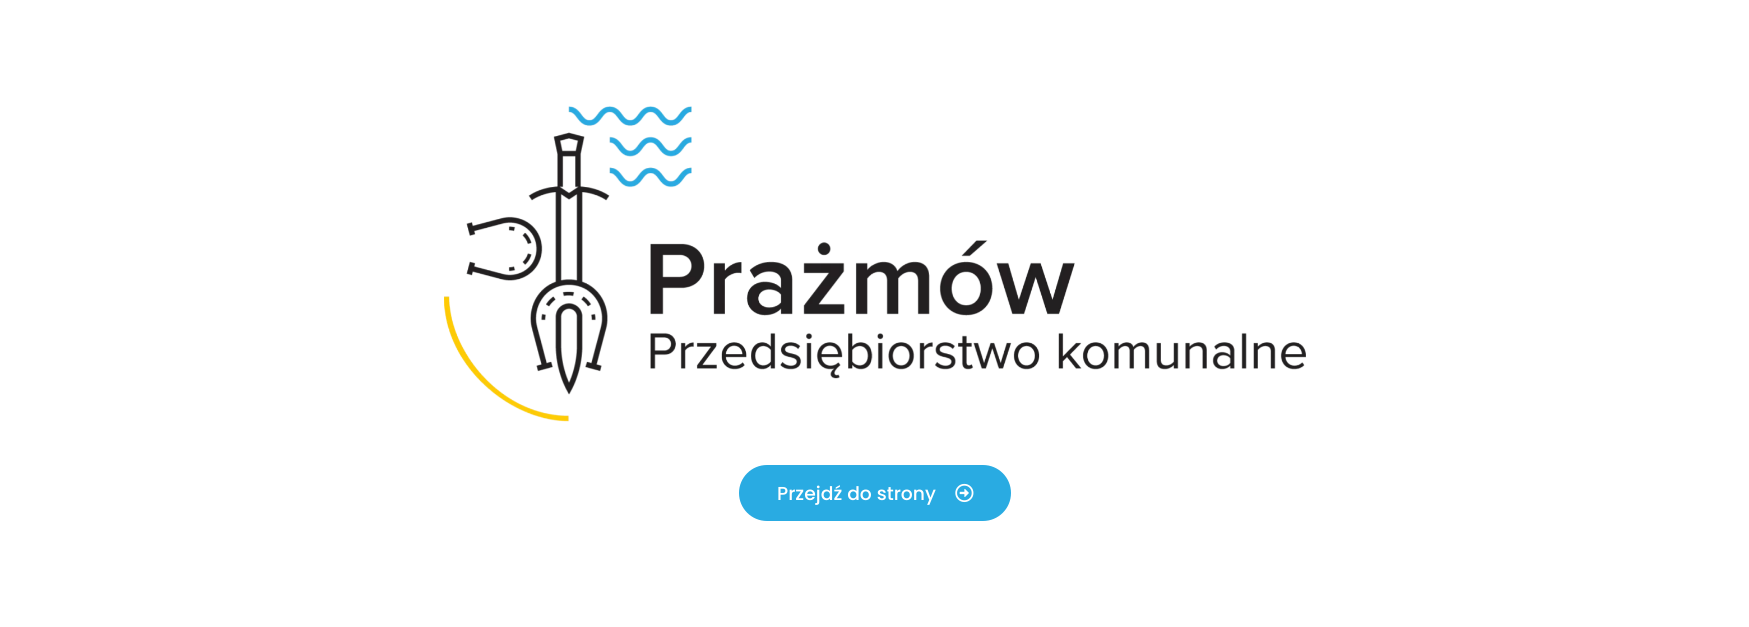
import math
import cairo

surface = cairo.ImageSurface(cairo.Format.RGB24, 1749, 627)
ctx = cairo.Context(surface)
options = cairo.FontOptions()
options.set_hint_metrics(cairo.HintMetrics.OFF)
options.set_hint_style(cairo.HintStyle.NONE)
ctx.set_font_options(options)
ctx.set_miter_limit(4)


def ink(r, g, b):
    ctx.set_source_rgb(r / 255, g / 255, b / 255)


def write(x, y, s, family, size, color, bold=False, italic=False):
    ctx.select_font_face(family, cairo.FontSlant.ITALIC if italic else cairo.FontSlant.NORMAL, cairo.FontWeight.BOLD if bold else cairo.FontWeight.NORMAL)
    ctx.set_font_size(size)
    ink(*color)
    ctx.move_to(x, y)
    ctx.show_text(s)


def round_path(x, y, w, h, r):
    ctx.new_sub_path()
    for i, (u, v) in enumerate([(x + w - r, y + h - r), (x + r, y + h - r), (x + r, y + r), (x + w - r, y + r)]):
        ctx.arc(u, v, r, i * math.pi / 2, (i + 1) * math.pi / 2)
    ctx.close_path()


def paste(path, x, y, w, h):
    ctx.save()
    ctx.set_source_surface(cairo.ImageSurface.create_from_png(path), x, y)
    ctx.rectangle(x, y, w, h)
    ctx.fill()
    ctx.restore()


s1 = dict(family="Poppins Medium", size=18.75, color=(255, 255, 255))

ink(255, 255, 255)
ctx.paint()
paste("pic1.png", 444, 106, 862, 316)
ink(41, 171, 226)
round_path(739, 465, 272, 56, 28)
ctx.fill()
write(777, 500, "Przejdź do strony", **s1)
paste("pic2.png", 955, 483, 19, 20)
surface.write_to_png("screenshot.png")
